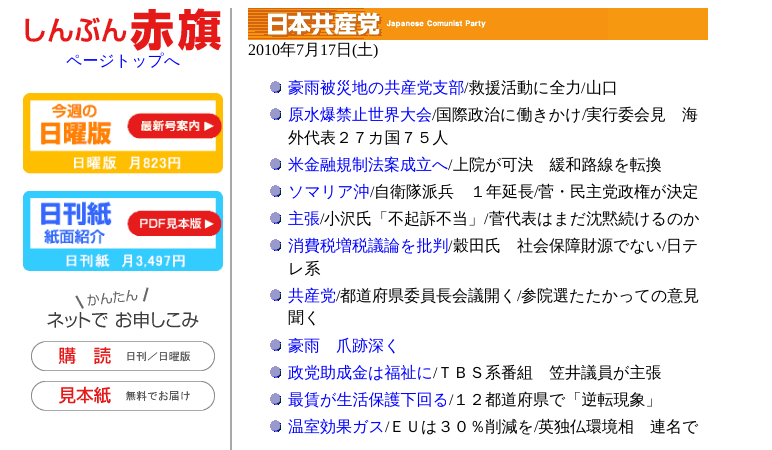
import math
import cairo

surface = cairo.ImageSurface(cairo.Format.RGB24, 772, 450)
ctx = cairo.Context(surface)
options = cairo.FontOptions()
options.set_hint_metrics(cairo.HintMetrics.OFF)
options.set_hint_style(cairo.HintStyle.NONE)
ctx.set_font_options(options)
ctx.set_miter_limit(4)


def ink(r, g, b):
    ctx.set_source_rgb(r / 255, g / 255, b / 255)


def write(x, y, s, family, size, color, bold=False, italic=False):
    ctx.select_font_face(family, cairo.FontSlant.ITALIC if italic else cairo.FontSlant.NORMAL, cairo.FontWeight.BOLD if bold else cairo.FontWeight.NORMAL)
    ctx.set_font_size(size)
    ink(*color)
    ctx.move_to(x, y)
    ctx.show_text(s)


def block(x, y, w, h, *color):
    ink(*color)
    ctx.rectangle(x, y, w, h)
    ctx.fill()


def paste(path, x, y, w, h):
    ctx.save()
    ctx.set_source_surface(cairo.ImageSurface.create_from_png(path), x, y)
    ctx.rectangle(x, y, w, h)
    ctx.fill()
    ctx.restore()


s1 = dict(family="WenQuanYi Zen Hei Medium", size=16, color=(0, 0, 255))
s2 = dict(family="Liberation Serif", size=16, color=(0, 0, 0))
s3 = dict(family="WenQuanYi Zen Hei Medium", size=16, color=(0, 0, 0))

ink(255, 255, 255)
ctx.paint()
block(230, 8, 2, 442, 169, 169, 169)
paste("pic1.png", 25, 8, 197, 43)
write(66, 66, "ページトップへ", **s1)
paste("pic2.png", 23, 93, 200, 81)
paste("pic3.png", 23, 191, 200, 80)
paste("pic4.png", 47, 287, 152, 42)
paste("pic5.png", 31, 341, 184, 30)
paste("pic6.png", 31, 381, 184, 30)
block(608, 8, 100, 32, 247, 153, 16)
paste("pic7.png", 248, 8, 360, 32)
write(248, 55, "2010", **s2)
write(280, 55, "年", **s3)
write(296, 55, "7", **s2)
write(304, 55, "月", **s3)
write(320, 55, "17", **s2)
write(336, 55, "日", **s3)
write(352, 55, "(", **s2)
write(357, 55, "土", **s3)
write(373, 55, ")", **s2)
paste("pic8.png", 270, 81, 11, 12)
write(288, 93, "豪雨被災地の共産党支部", **s1)
write(464, 93, "/", **s2)
write(469, 93, "救援活動に全力", **s3)
write(581, 93, "/", **s2)
write(586, 93, "山口", **s3)
paste("pic8.png", 270, 108, 11, 12)
write(288, 120, "原水爆禁止世界大会", **s1)
write(432, 120, "/", **s2)
write(436, 120, "国際政治に働きかけ", **s3)
write(582, 120, "/", **s2)
write(586, 120, "実行委会見　海", **s3)
write(288, 143, "外代表２７カ国７５人", **s3)
paste("pic8.png", 270, 158, 11, 12)
write(288, 170, "米金融規制法案成立へ", **s1)
write(448, 170, "/", **s2)
write(453, 170, "上院が可決　緩和路線を転換", **s3)
paste("pic8.png", 270, 185, 11, 12)
write(288, 197, "ソマリア沖", **s1)
write(370, 197, "/", **s2)
write(374, 197, "自衛隊派兵　１年延長", **s3)
write(534, 197, "/", **s2)
write(538, 197, "菅・民主党政権が決定", **s3)
paste("pic8.png", 270, 212, 11, 12)
write(288, 224, "主張", **s1)
write(320, 224, "/", **s2)
write(324, 224, "小沢氏「不起訴不当」", **s3)
write(484, 224, "/", **s2)
write(489, 224, "菅代表はまだ沈黙続けるのか", **s3)
paste("pic8.png", 270, 239, 11, 12)
write(288, 251, "消費税増税議論を批判", **s1)
write(448, 251, "/", **s2)
write(453, 251, "穀田氏　社会保障財源でない", **s3)
write(662, 251, "/", **s2)
write(666, 251, "日テ", **s3)
write(288, 274, "レ系", **s3)
paste("pic8.png", 270, 289, 11, 12)
write(288, 301, "共産党", **s1)
write(336, 301, "/", **s2)
write(340, 301, "都道府県委員長会議開く", **s3)
write(517, 301, "/", **s2)
write(521, 301, "参院選たたかっての意見", **s3)
write(288, 323, "聞く", **s3)
paste("pic8.png", 270, 339, 11, 12)
write(288, 351, "豪雨　爪跡深く", **s1)
paste("pic8.png", 270, 366, 11, 12)
write(288, 378, "政党助成金は福祉に", **s1)
write(433, 378, "/", **s2)
write(437, 378, "ＴＢＳ系番組　笠井議員が主張", **s3)
paste("pic8.png", 270, 393, 11, 12)
write(288, 405, "最賃が生活保護下回る", **s1)
write(449, 405, "/", **s2)
write(453, 405, "１２都道府県で「逆転現象」", **s3)
paste("pic8.png", 270, 420, 11, 12)
write(288, 432, "温室効果ガス", **s1)
write(385, 432, "/", **s2)
write(389, 432, "ＥＵは３０％削減を", **s3)
write(534, 432, "/", **s2)
write(538, 432, "英独仏環境相　連名で", **s3)
surface.write_to_png("screenshot.png")
